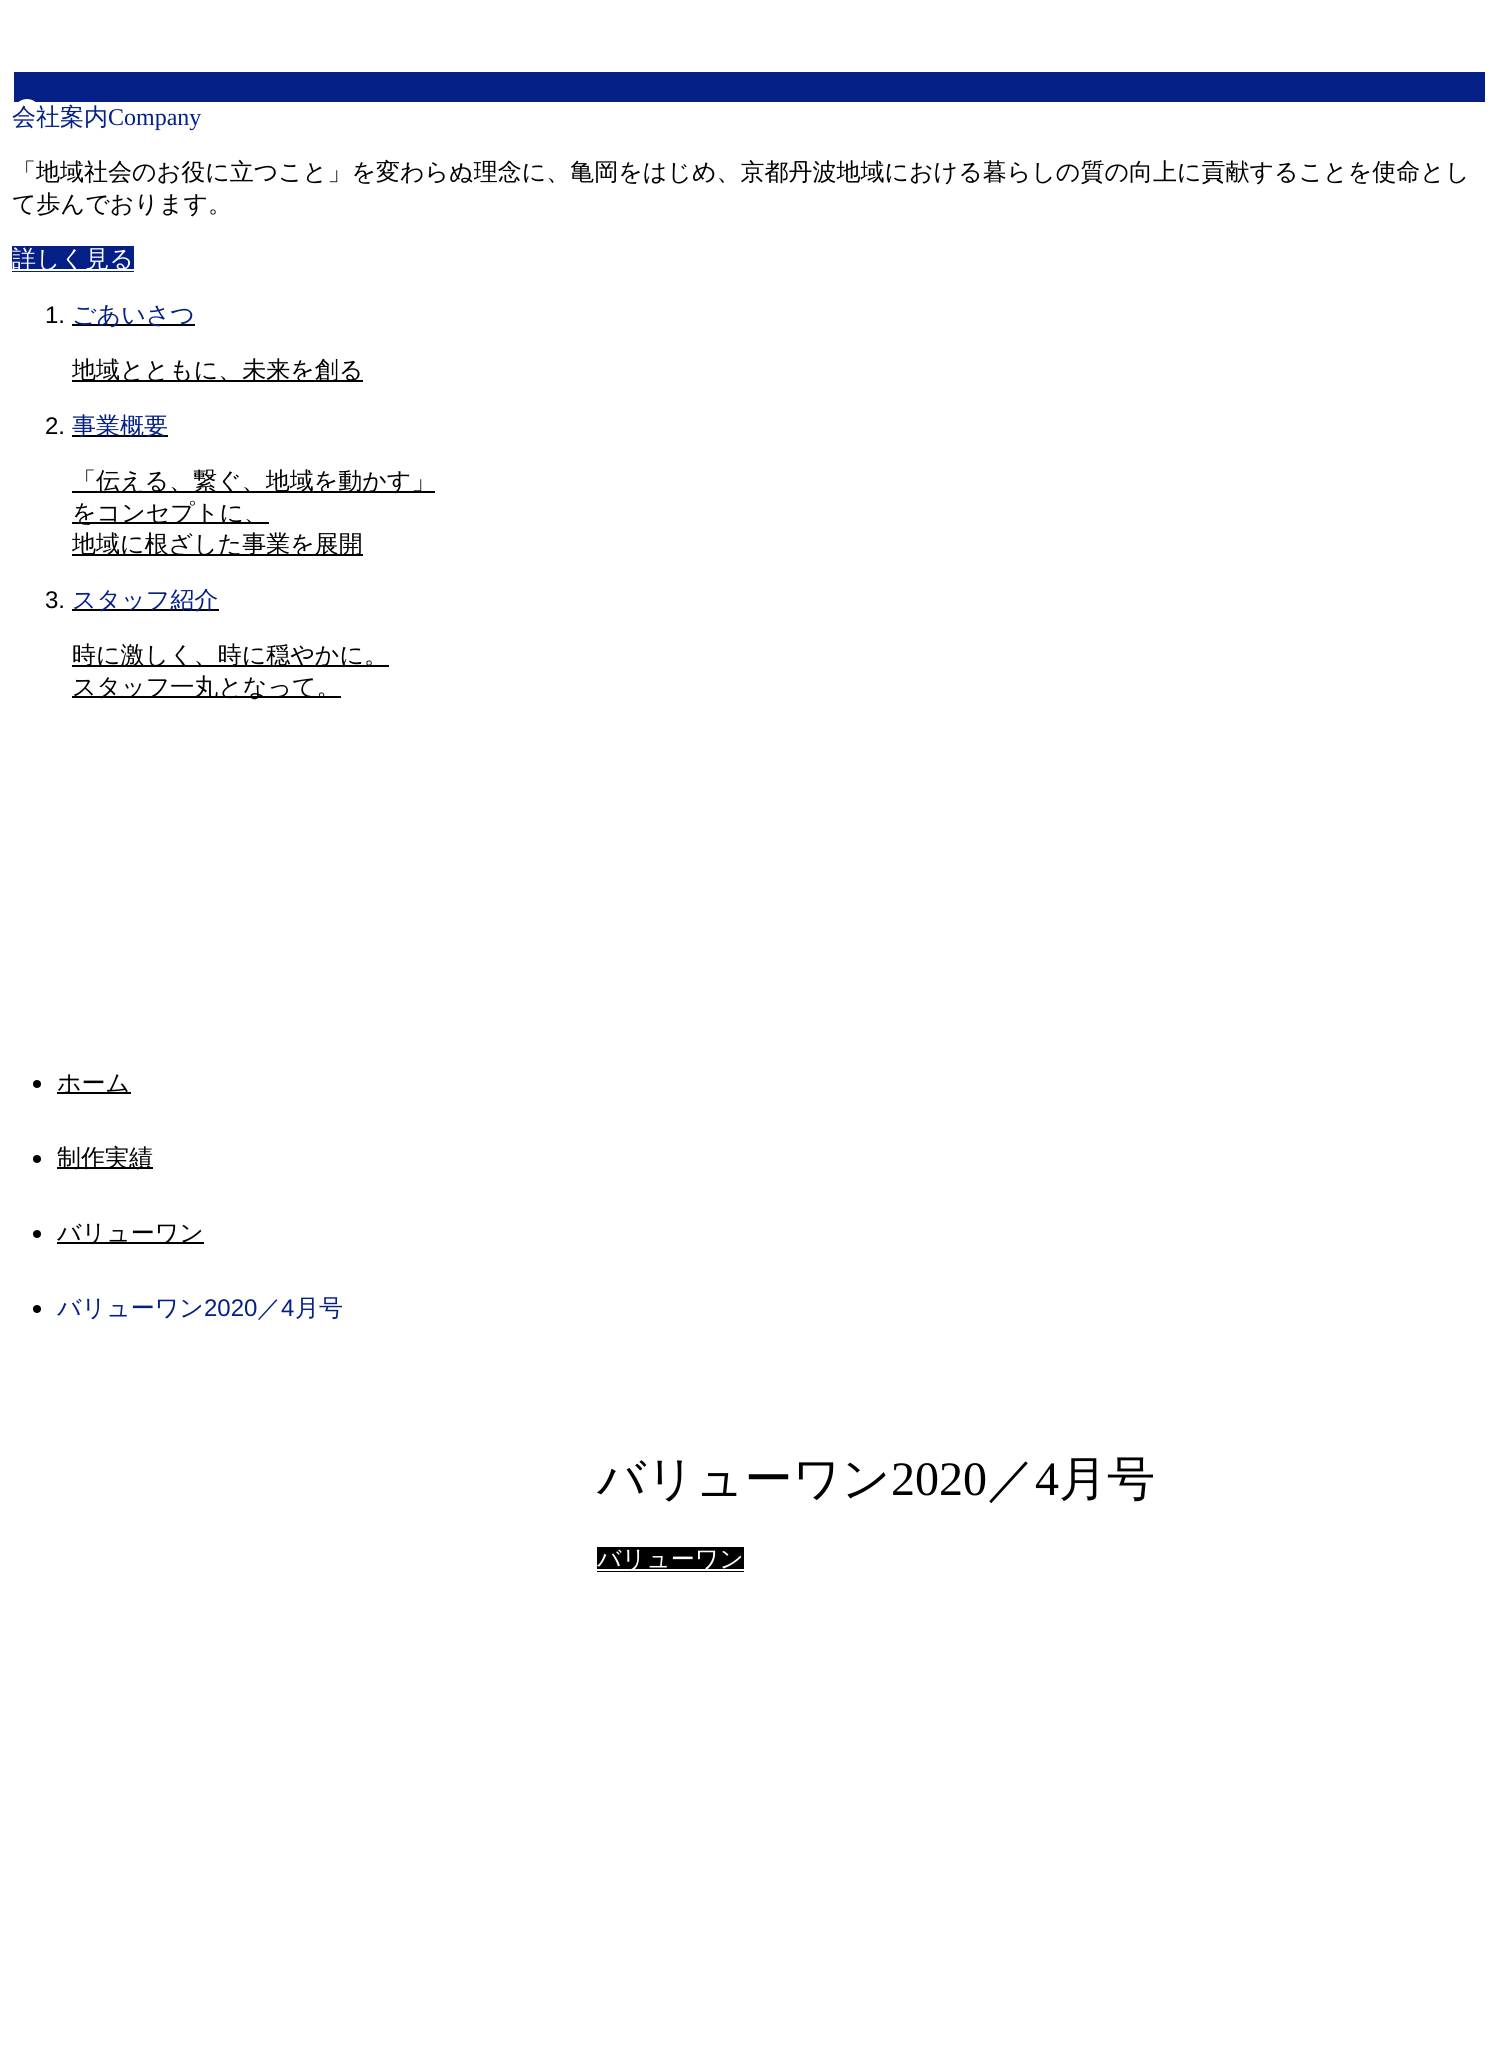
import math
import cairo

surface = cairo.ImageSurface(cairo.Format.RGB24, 1496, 2058)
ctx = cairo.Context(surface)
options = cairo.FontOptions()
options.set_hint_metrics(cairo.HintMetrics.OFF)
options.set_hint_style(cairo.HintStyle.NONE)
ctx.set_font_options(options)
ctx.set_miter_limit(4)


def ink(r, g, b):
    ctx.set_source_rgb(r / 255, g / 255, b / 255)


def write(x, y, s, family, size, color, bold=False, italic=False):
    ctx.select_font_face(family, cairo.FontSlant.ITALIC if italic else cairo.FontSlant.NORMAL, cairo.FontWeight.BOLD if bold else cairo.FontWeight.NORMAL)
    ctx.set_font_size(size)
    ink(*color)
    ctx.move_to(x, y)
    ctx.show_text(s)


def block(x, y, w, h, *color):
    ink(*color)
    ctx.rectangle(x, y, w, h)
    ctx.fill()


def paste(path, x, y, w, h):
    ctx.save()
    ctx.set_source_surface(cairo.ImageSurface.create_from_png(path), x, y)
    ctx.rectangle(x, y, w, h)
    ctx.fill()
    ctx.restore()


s1 = dict(family="WenQuanYi Zen Hei Medium", size=24, color=(4, 32, 135))
s2 = dict(family="Liberation Serif", size=24, color=(4, 32, 135))
s3 = dict(family="WenQuanYi Zen Hei Medium", size=24, color=(0, 0, 0))
s4 = dict(family="WenQuanYi Zen Hei Medium", size=24, color=(255, 255, 255))
s5 = dict(family="Liberation Sans", size=24, color=(0, 0, 0))
s6 = dict(family="Liberation Sans", size=24, color=(4, 32, 135))
s7 = dict(family="WenQuanYi Zen Hei Medium", size=48, color=(0, 0, 0))
s8 = dict(family="Liberation Serif", size=48, color=(0, 0, 0))

ink(255, 255, 255)
ctx.paint()
block(14, 72, 1471, 30, 4, 32, 135)
paste("pic1.png", 18, 99, 18, 3)
write(12, 125, "会社案内", **s1)
write(108, 125, "Company", **s2)
write(12, 180, "「地域社会のお役に立つこと」を変わらぬ理念に、亀岡をはじめ、京都丹波地域における暮らしの質の向上に貢献することを使命とし", **s3)
write(12, 212, "て歩んでおります。", **s3)
block(12, 246, 122, 26, 4, 32, 135)
block(12, 269, 122, 2, 255, 255, 255)
write(12, 267, "詳しく見る", **s4)
write(45, 323, "1.", **s5)
block(72, 324, 123, 2, 0, 0, 0)
write(72, 323, "ごあいさつ", **s1)
block(72, 380, 291, 2, 0, 0, 0)
write(72, 378, "地域とともに、未来を創る", **s3)
write(45, 434, "2.", **s5)
block(72, 435, 96, 2, 0, 0, 0)
write(72, 434, "事業概要", **s1)
block(72, 491, 363, 2, 0, 0, 0)
write(72, 489, "「伝える、繋ぐ、地域を動かす」", **s3)
block(72, 522, 197, 2, 0, 0, 0)
write(72, 521, "をコンセプトに、", **s3)
block(72, 554, 291, 2, 0, 0, 0)
write(72, 552, "地域に根ざした事業を展開", **s3)
write(45, 608, "3.", **s5)
block(72, 609, 147, 2, 0, 0, 0)
write(72, 608, "スタッフ紹介", **s1)
block(72, 665, 317, 2, 0, 0, 0)
write(72, 663, "時に激しく、時に穏やかに。", **s3)
block(72, 696, 269, 2, 0, 0, 0)
write(72, 695, "スタッフ一丸となって。", **s3)
ctx.new_path()
ctx.arc(37, 1084, 4, 0, 2 * math.pi)
ctx.fill()
block(57, 1092, 74, 2, 0, 0, 0)
write(57, 1091, "ホーム", **s3)
ctx.new_path()
ctx.arc(37, 1159, 4, 0, 2 * math.pi)
ctx.fill()
block(57, 1167, 96, 2, 0, 0, 0)
write(57, 1166, "制作実績", **s3)
ctx.new_path()
ctx.arc(37, 1234, 4, 0, 2 * math.pi)
ctx.fill()
block(57, 1242, 147, 2, 0, 0, 0)
write(57, 1241, "バリューワン", **s3)
ctx.new_path()
ctx.arc(37, 1309, 4, 0, 2 * math.pi)
ctx.fill()
write(57, 1316, "バリューワン", **s1)
write(204, 1316, "2020", **s6)
write(257, 1316, "／", **s1)
write(281, 1316, "4", **s6)
write(295, 1316, "月号", **s1)
write(597, 1495, "バリューワン", **s7)
write(891, 1495, "2020", **s8)
write(987, 1495, "／", **s7)
write(1035, 1495, "4", **s8)
write(1059, 1495, "月号", **s7)
block(597, 1547, 147, 25, 0, 0, 0)
block(597, 1569, 147, 2, 255, 255, 255)
write(597, 1567, "バリューワン", **s4)
surface.write_to_png("screenshot.png")
